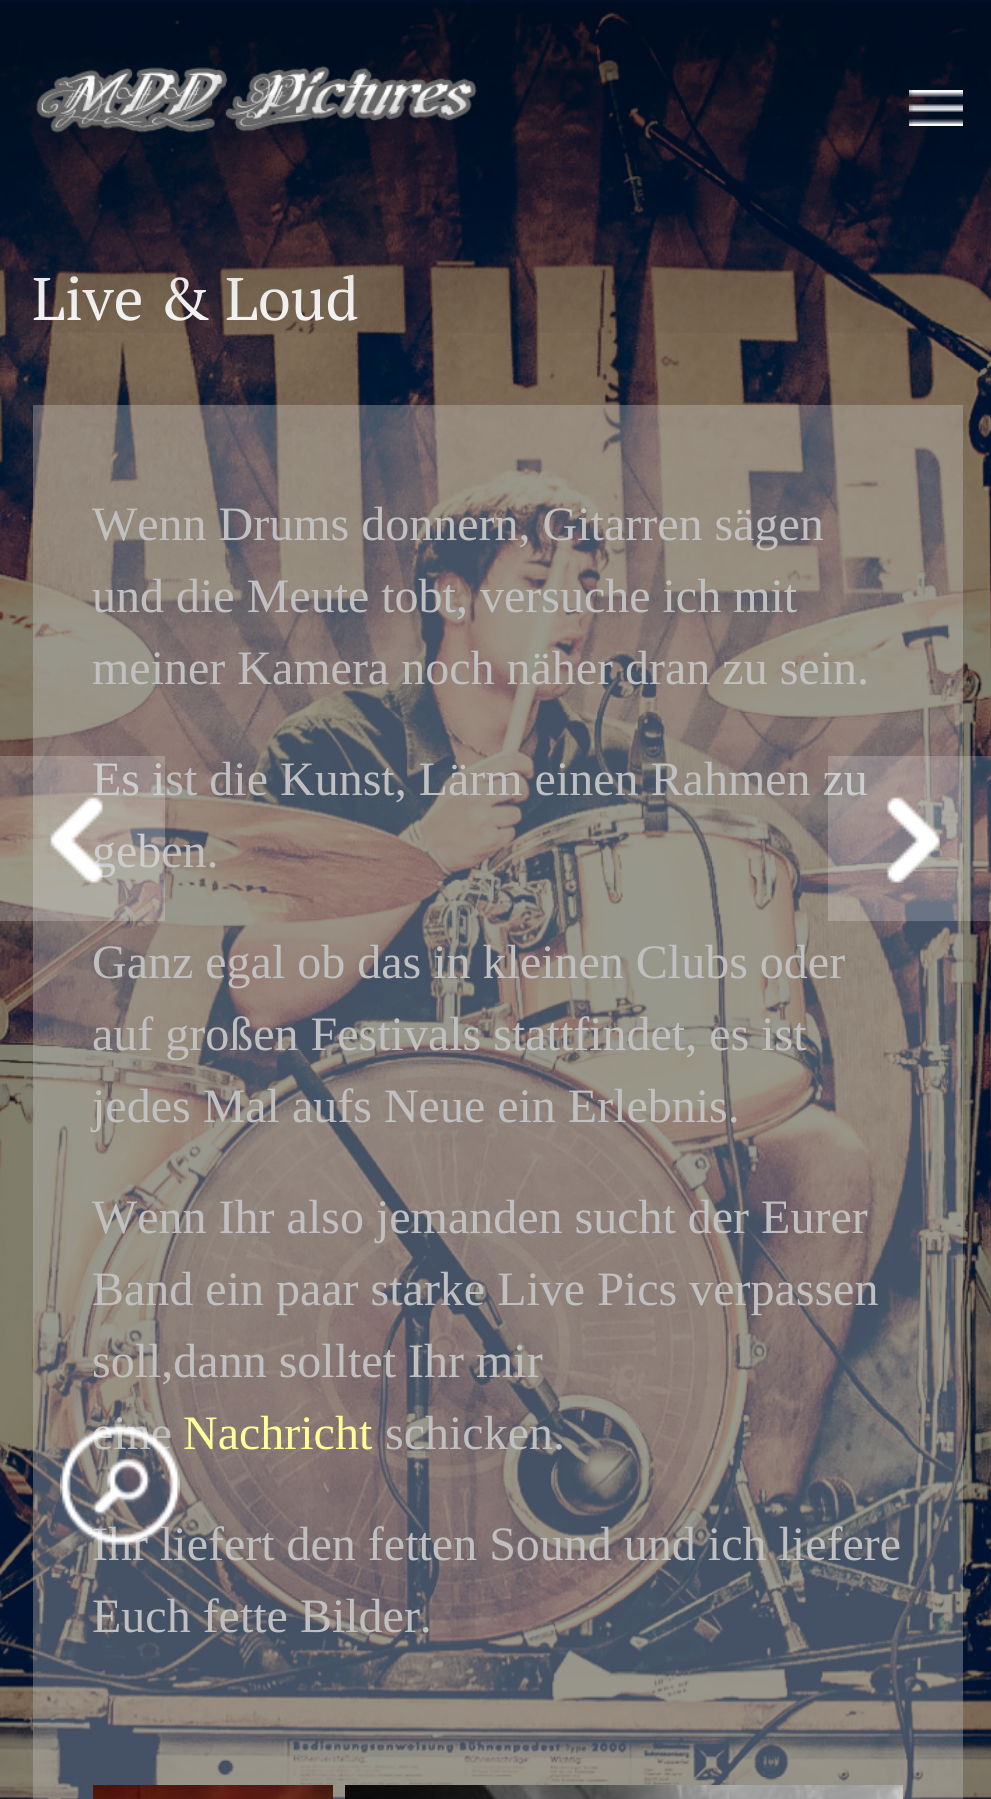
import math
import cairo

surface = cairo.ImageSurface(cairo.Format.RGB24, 991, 1799)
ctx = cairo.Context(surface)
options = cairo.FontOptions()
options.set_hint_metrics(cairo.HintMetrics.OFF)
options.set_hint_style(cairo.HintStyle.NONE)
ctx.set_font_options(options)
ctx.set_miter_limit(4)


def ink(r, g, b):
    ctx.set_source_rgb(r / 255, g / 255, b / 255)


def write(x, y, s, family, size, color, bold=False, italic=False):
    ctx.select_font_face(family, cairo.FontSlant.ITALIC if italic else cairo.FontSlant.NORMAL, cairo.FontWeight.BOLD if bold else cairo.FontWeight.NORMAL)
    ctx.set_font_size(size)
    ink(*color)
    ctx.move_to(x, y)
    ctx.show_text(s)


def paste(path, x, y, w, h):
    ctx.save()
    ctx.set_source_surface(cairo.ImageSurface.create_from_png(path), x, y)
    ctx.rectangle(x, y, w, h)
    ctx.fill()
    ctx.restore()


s1 = dict(family="PT Serif", size=60, color=(255, 255, 255))
s2 = dict(family="Liberation Serif", size=48, color=(192, 192, 192))
s3 = dict(family="Liberation Serif", size=48, color=(255, 255, 153))

ink(255, 255, 255)
ctx.paint()
paste("pic1.png", 0, 0, 991, 1799)
write(32, 320, "Live & Loud", **s1)
paste("pic2.png", 0, 0, 991, 333)
paste("pic3.png", 36, 66, 441, 67)
paste("pic4.png", 909, 90, 54, 36)
ctx.set_source_rgba(0.78, 0.78, 0.78, 0.35)
ctx.rectangle(33, 405, 930, 1394)
ctx.fill()
write(92, 540, "Wenn Drums donnern, Gitarren sägen", **s2)
write(92, 612, "und die Meute tobt, versuche ich mit", **s2)
write(92, 684, "meiner Kamera noch näher dran zu sein.", **s2)
write(92, 795, "Es ist die Kunst, Lärm einen Rahmen zu", **s2)
write(92, 867, "geben.", **s2)
write(92, 978, "Ganz egal ob das in kleinen Clubs oder", **s2)
write(92, 1050, "auf großen Festivals stattfindet, es ist", **s2)
write(92, 1122, "jedes Mal aufs Neue ein Erlebnis.", **s2)
write(92, 1233, "Wenn Ihr also jemanden sucht der Eurer", **s2)
write(92, 1305, "Band ein paar starke Live Pics verpassen", **s2)
write(92, 1377, "soll,dann solltet Ihr mir", **s2)
write(92, 1449, "eine", **s2)
write(183, 1449, "Nachricht", **s3)
write(385, 1449, "schicken.", **s2)
write(92, 1560, "Ihr liefert den fetten Sound und ich liefere", **s2)
write(92, 1632, "Euch fette Bilder.", **s2)
paste("pic5.png", 93, 1785, 240, 14)
paste("pic6.png", 345, 1785, 558, 14)
ctx.set_source_rgba(1, 1, 1, 0.2)
ctx.rectangle(0, 756, 165, 165)
ctx.fill()
paste("pic7.png", 50, 797, 53, 86)
ctx.rectangle(828, 756, 163, 165)
ctx.fill()
paste("pic8.png", 887, 797, 53, 86)
paste("pic9.png", 60, 1424, 120, 121)
surface.write_to_png("screenshot.png")
